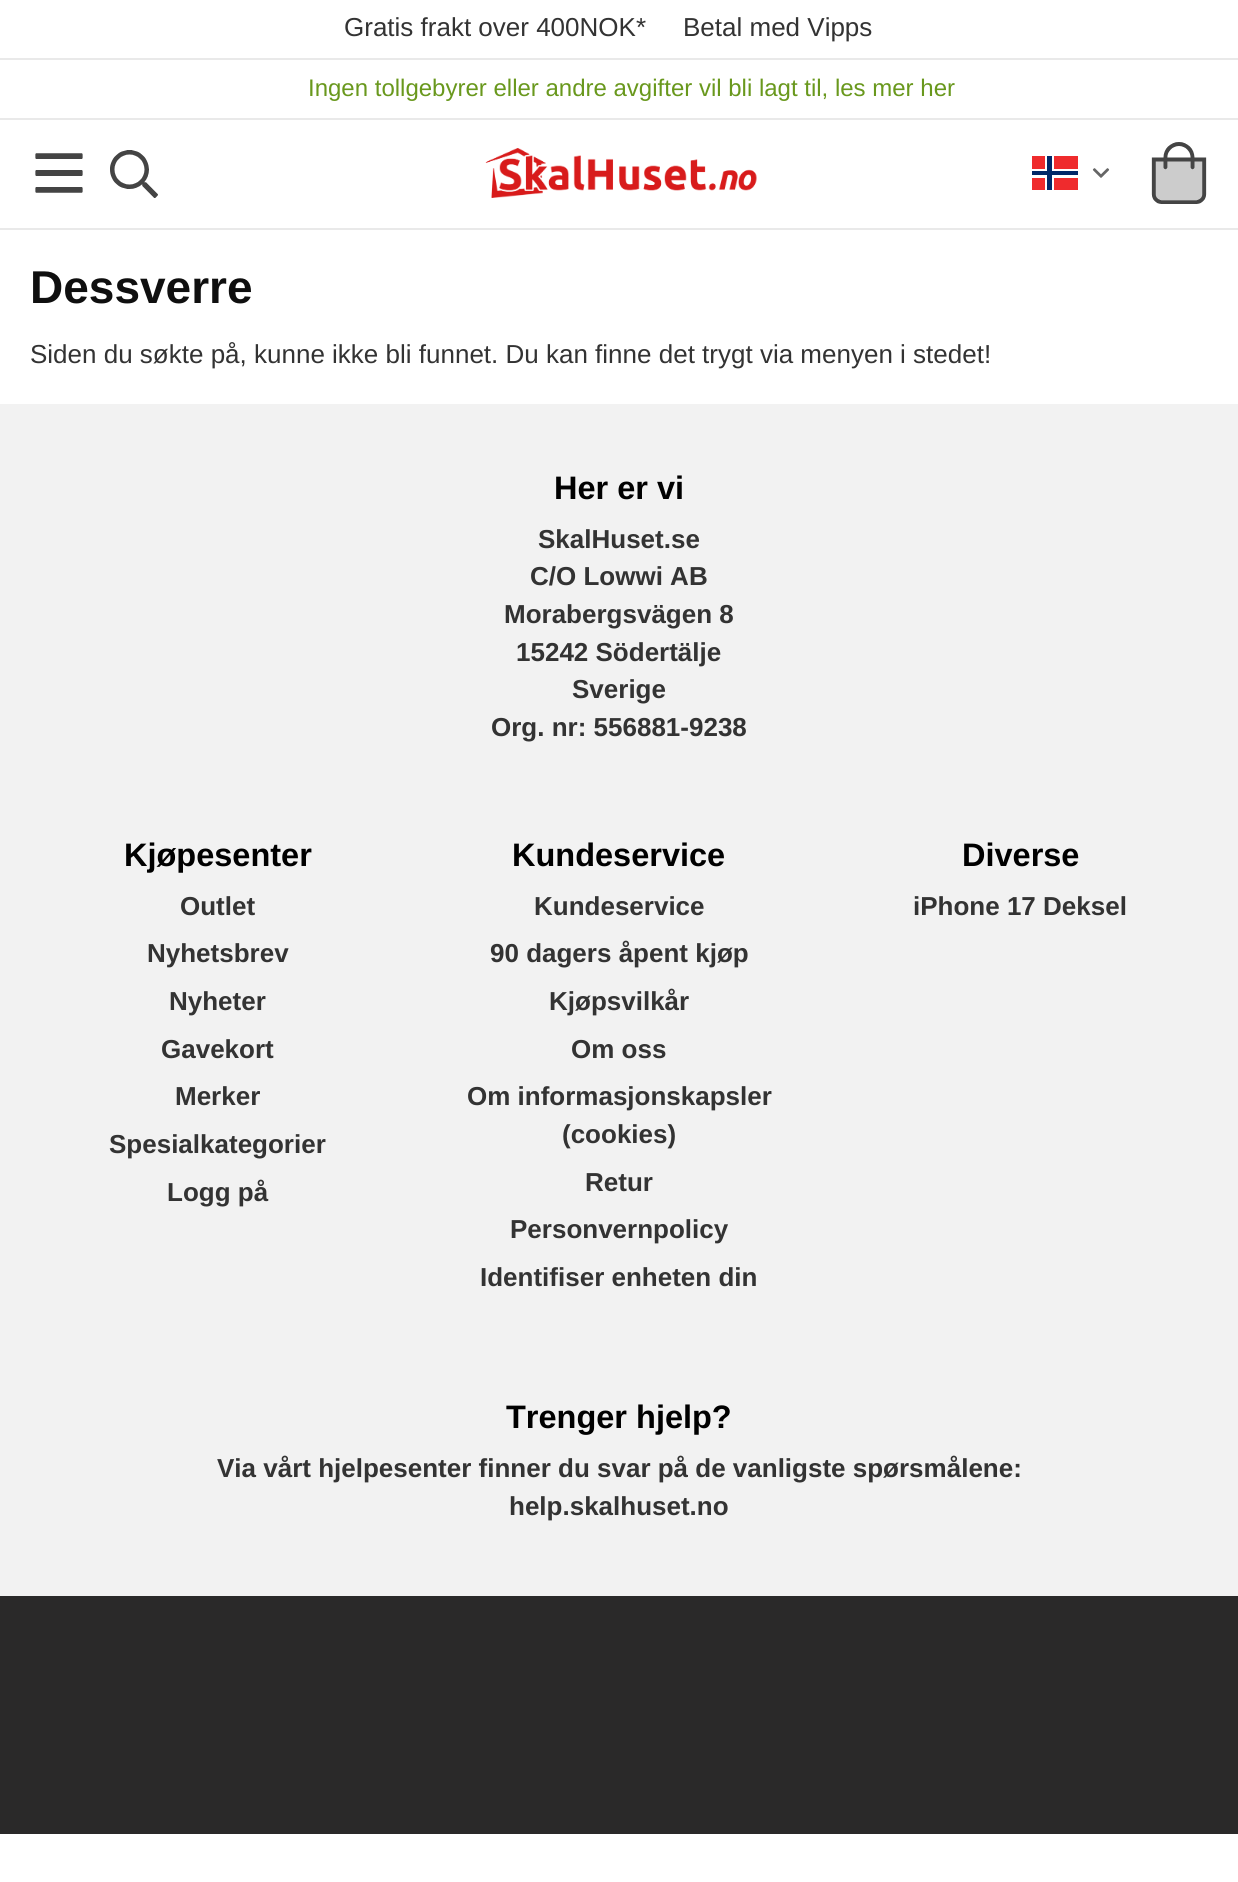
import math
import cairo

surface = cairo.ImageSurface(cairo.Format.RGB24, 1238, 1882)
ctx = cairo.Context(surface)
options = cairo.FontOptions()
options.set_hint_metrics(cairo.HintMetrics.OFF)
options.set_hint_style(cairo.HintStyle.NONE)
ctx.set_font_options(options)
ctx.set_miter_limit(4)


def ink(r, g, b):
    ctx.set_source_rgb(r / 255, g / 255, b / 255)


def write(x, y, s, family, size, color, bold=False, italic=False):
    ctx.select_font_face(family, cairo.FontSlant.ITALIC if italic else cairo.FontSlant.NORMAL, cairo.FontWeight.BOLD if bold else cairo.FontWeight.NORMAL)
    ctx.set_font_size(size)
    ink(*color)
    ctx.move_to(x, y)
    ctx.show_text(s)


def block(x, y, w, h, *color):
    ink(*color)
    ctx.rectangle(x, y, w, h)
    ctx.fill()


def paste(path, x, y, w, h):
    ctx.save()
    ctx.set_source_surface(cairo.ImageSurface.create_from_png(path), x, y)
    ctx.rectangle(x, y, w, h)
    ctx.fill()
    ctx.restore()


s1 = dict(family="Liberation Sans", size=26, color=(51, 51, 51))
s2 = dict(family="Liberation Sans", size=24, color=(105, 152, 29))
s3 = dict(family="Liberation Sans", size=46, color=(15, 15, 15), bold=True)
s4 = dict(family="Liberation Sans", size=32.5, color=(0, 0, 0), bold=True)
s5 = dict(family="Liberation Sans", size=26, color=(51, 51, 51), bold=True)

ink(255, 255, 255)
ctx.paint()
block(0, 58, 1238, 2, 233, 233, 233)
write(344, 36, "Gratis frakt over 400NOK*", **s1)
write(683, 36, "Betal med Vipps", **s1)
block(0, 118, 1238, 2, 233, 233, 233)
write(308, 96, "Ingen tollgebyrer eller andre avgifter vil bli lagt til, les mer her", **s2)
block(0, 228, 1238, 2, 233, 233, 233)
paste("pic1.png", 35, 153, 48, 40)
paste("pic2.png", 110, 150, 48, 48)
paste("pic3.png", 485, 148, 272, 50)
block(1032, 156, 46, 34, 239, 43, 45)
block(1045, 156, 9, 34, 255, 255, 255)
block(1032, 169, 46, 9, 255, 255, 255)
block(1047, 156, 5, 34, 0, 40, 104)
block(1032, 171, 46, 4, 0, 40, 104)
paste("pic4.png", 1092, 168, 18, 10)
block(1155, 161, 48, 39, 204, 204, 204)
paste("pic5.png", 1151, 142, 56, 62)
write(30, 303, "Dessverre", **s3)
write(30, 363, "Siden du søkte på, kunne ikke bli funnet. Du kan finne det trygt via menyen i stedet!", **s1)
block(0, 404, 1238, 1192, 242, 242, 242)
write(554, 499, "Her er vi", **s4)
write(538, 548, "SkalHuset.se", **s5)
write(530, 585, "C/O Lowwi AB", **s5)
write(504, 623, "Morabergsvägen 8", **s5)
write(516, 661, "15242 Södertälje", **s5)
write(572, 698, "Sverige", **s5)
write(491, 736, "Org. nr: 556881-9238", **s5)
write(124, 866, "Kjøpesenter", **s4)
write(180, 915, "Outlet", **s5)
write(147, 962, "Nyhetsbrev", **s5)
write(169, 1010, "Nyheter", **s5)
write(161, 1058, "Gavekort", **s5)
write(175, 1105, "Merker", **s5)
write(109, 1153, "Spesialkategorier", **s5)
write(167, 1201, "Logg på", **s5)
write(512, 866, "Kundeservice", **s4)
write(534, 915, "Kundeservice", **s5)
write(490, 962, "90 dagers åpent kjøp", **s5)
write(549, 1010, "Kjøpsvilkår", **s5)
write(571, 1058, "Om oss", **s5)
write(467, 1105, "Om informasjonskapsler", **s5)
write(562, 1143, "(cookies)", **s5)
write(585, 1191, "Retur", **s5)
write(510, 1238, "Personvernpolicy", **s5)
write(480, 1286, "Identifiser enheten din", **s5)
write(962, 866, "Diverse", **s4)
write(913, 915, "iPhone 17 Deksel", **s5)
write(506, 1428, "Trenger hjelp?", **s4)
write(217, 1477, "Via vårt hjelpesenter finner du svar på de vanligste spørsmålene:", **s5)
write(509, 1515, "help.skalhuset.no", **s5)
block(0, 1596, 1238, 238, 42, 41, 41)
surface.write_to_png("screenshot.png")
